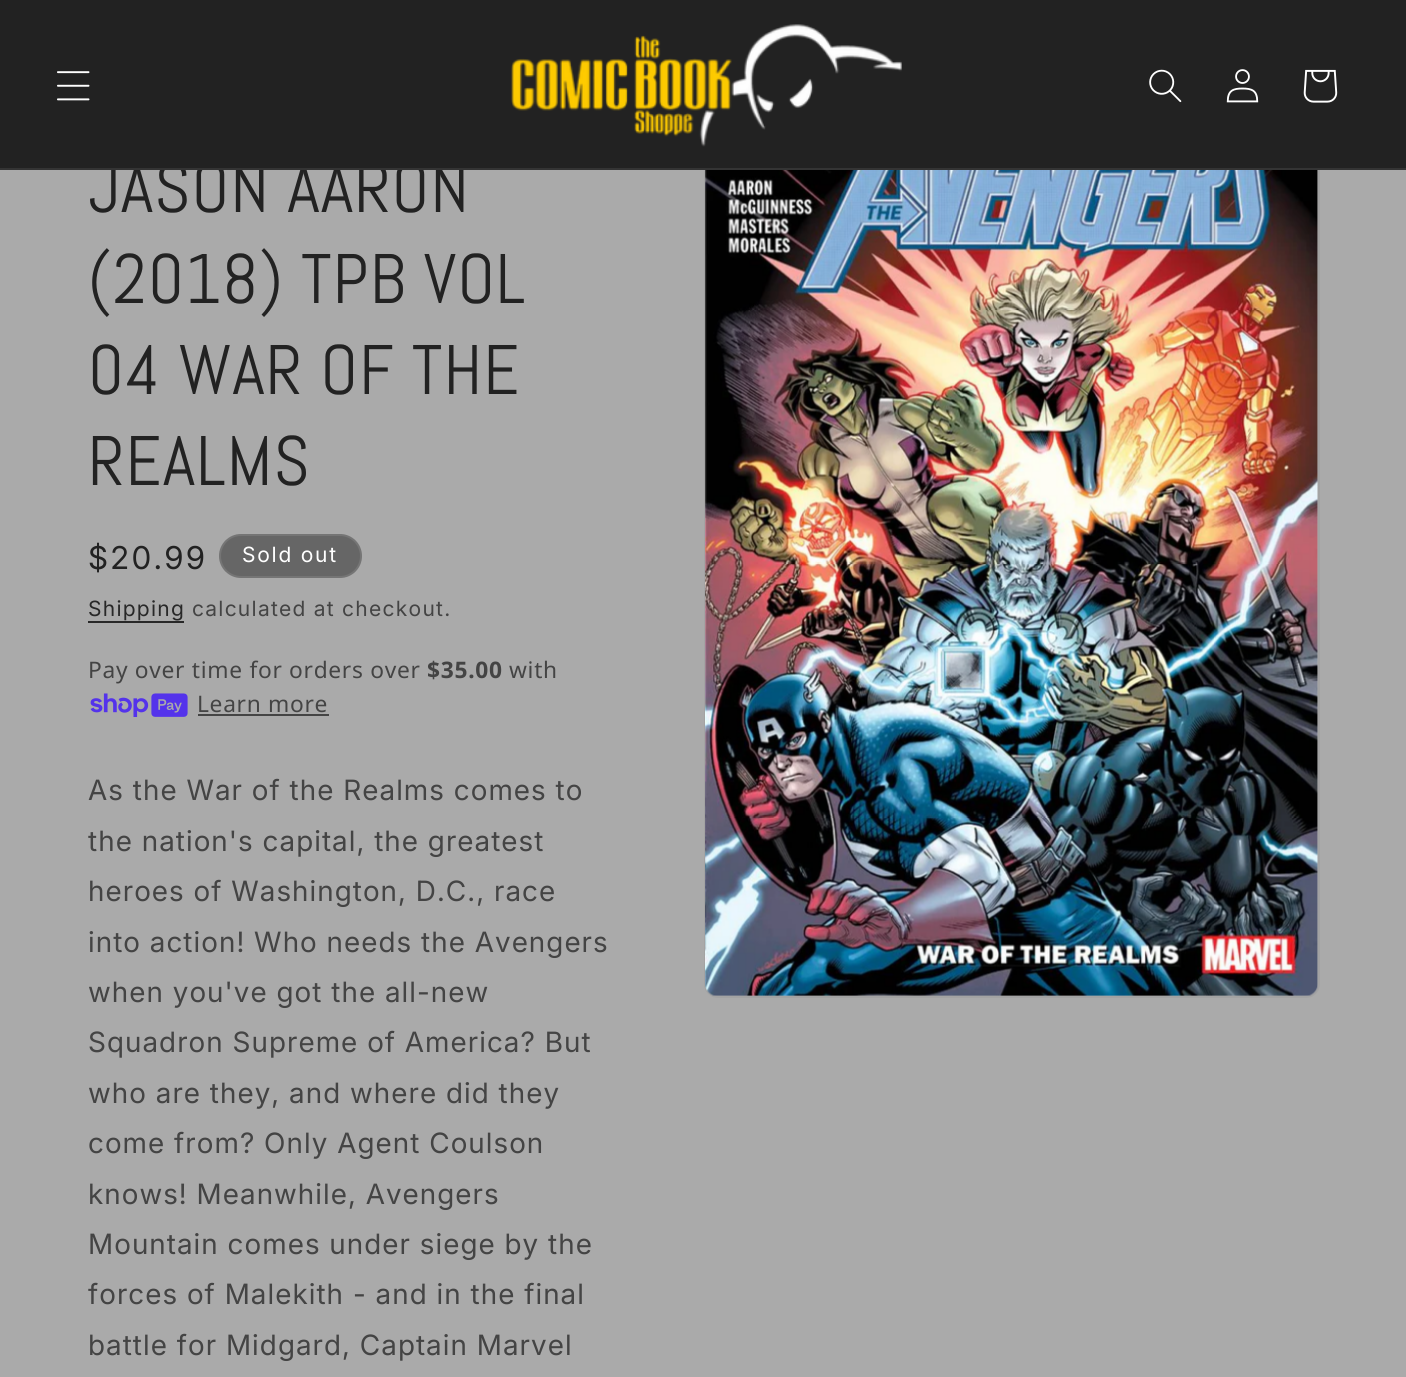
import math
import cairo

surface = cairo.ImageSurface(cairo.Format.RGB24, 1406, 1377)
ctx = cairo.Context(surface)
options = cairo.FontOptions()
options.set_hint_metrics(cairo.HintMetrics.OFF)
options.set_hint_style(cairo.HintStyle.NONE)
ctx.set_font_options(options)
ctx.set_miter_limit(4)


def ink(r, g, b):
    ctx.set_source_rgb(r / 255, g / 255, b / 255)


def write_spaced(x, y, s, letter, word):
    ctx.move_to(x, y)
    for ch in s:
        ctx.show_text(ch)
        ctx.rel_move_to(letter + word * (ch == ' '), 0)


def block(x, y, w, h, *color):
    ink(*color)
    ctx.rectangle(x, y, w, h)
    ctx.fill()


def round_path(x, y, w, h, r):
    ctx.new_sub_path()
    for i, (u, v) in enumerate([(x + w - r, y + h - r), (x + r, y + h - r), (x + r, y + r), (x + w - r, y + r)]):
        ctx.arc(u, v, r, i * math.pi / 2, (i + 1) * math.pi / 2)
    ctx.close_path()


def paste(path, x, y, w, h):
    ctx.save()
    ctx.set_source_surface(cairo.ImageSurface.create_from_png(path), x, y)
    ctx.rectangle(x, y, w, h)
    ctx.fill()
    ctx.restore()


ink(170, 170, 170)
ctx.paint()
round_path(705, 54, 614, 943, 13)
ink(163, 163, 163)
ctx.stroke()
block(0, 0, 1406, 168, 34, 34, 34)
ctx.select_font_face("Abel")
ctx.set_font_size(70)
write_spaced(88, 212, "JASON AARON", 1.05, 0)
block(0, 168, 1406, 2, 52, 52, 52)
paste("pic1.png", 57, 71, 33, 30)
paste("pic2.png", 511, 24, 391, 123)
paste("pic3.png", 1149, 69, 33, 34)
paste("pic4.png", 1226, 69, 33, 34)
paste("pic5.png", 1303, 69, 35, 34)
ink(34, 34, 34)
write_spaced(88, 303, "(2018) TPB VOL", 1.05, 0)
write_spaced(88, 394, "04 WAR OF THE", 1.05, 0)
write_spaced(88, 485, "REALMS", 1.05, 0)
ctx.select_font_face("Inter")
ctx.set_font_size(31.5)
write_spaced(88, 569, "$20.99", 2.25, 0)
ink(102, 102, 102)
round_path(219, 534, 143, 44, 22)
ctx.fill()
round_path(220, 535, 141, 42, 21)
ctx.set_source_rgba(1, 1, 1, 0.1)
ctx.stroke()
ctx.select_font_face("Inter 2")
ctx.set_font_size(21)
ink(255, 255, 255)
write_spaced(242, 562, "Sold out", 1.75, 0)
ink(40, 40, 40)
write_spaced(88, 616, "Shipping", 1.25, 0)
block(88, 621, 96, 2, 40, 40, 40)
ink(68, 68, 68)
write_spaced(192, 616, "calculated at checkout.", 1.25, 0)
ctx.select_font_face("Noto Sans")
ctx.set_font_size(22.75)
write_spaced(88, 678, "Pay over time for orders over", 0.7, 0)
ctx.select_font_face("Noto Sans", cairo.FontSlant.NORMAL, cairo.FontWeight.BOLD)
write_spaced(427, 678, "$35.00", 0.7, 0)
ctx.select_font_face("Noto Sans")
write_spaced(509, 678, "with", 0.7, 0)
paste("pic6.png", 90, 693, 98, 24)
write_spaced(197, 712, "Learn more", 0.7, 0)
block(198, 714, 131, 2, 68, 68, 68)
ctx.select_font_face("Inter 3")
ctx.set_font_size(28)
write_spaced(88, 800, "As the War of the Realms comes to", 1.05, 0)
write_spaced(88, 851, "the nation's capital, the greatest", 1.05, 0)
write_spaced(88, 901, "heroes of Washington, D.C., race", 1.05, 0)
write_spaced(88, 952, "into action! Who needs the Avengers", 1.05, 0)
write_spaced(88, 1002, "when you've got the all-new", 1.05, 0)
write_spaced(88, 1052, "Squadron Supreme of America? But", 1.05, 0)
write_spaced(88, 1103, "who are they, and where did they", 1.05, 0)
write_spaced(88, 1153, "come from? Only Agent Coulson", 1.05, 0)
write_spaced(88, 1204, "knows! Meanwhile, Avengers", 1.05, 0)
write_spaced(88, 1254, "Mountain comes under siege by the", 1.05, 0)
write_spaced(88, 1304, "forces of Malekith - and in the final", 1.05, 0)
write_spaced(88, 1355, "battle for Midgard, Captain Marvel", 1.05, 0)
paste("pic7.png", 705, 170, 613, 826)
surface.write_to_png("screenshot.png")
